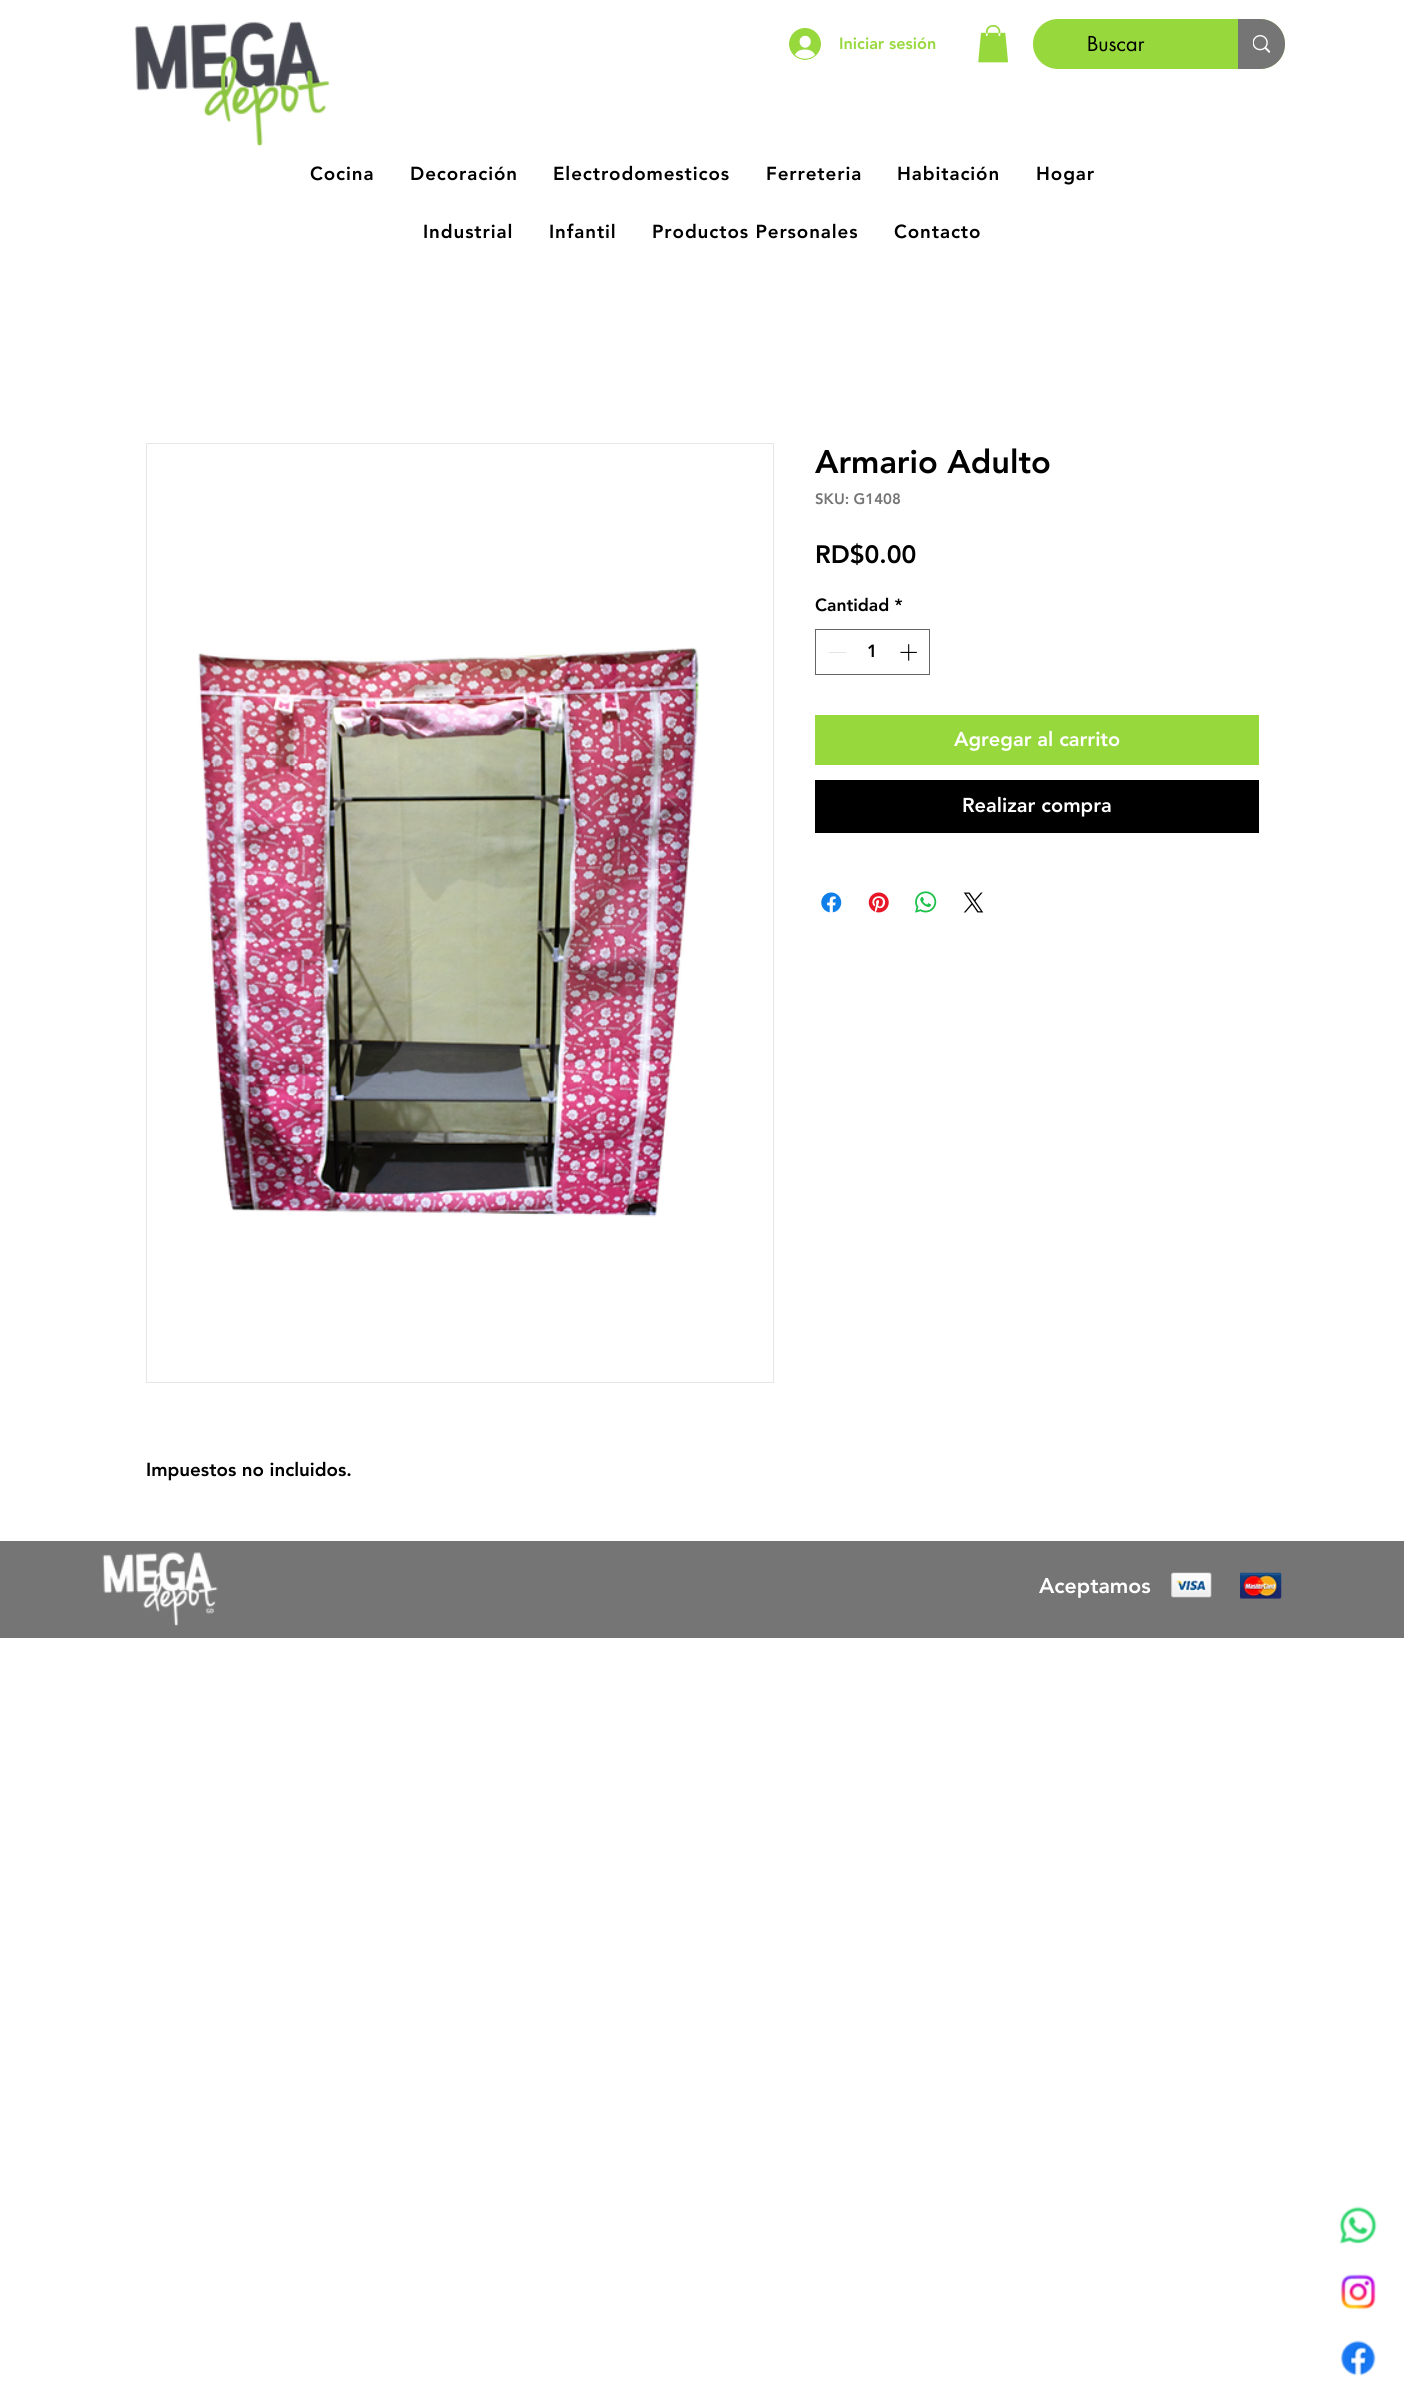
import math
import cairo

surface = cairo.ImageSurface(cairo.Format.RGB24, 1404, 2405)
ctx = cairo.Context(surface)
options = cairo.FontOptions()
options.set_hint_metrics(cairo.HintMetrics.OFF)
options.set_hint_style(cairo.HintStyle.NONE)
ctx.set_font_options(options)
ctx.set_miter_limit(4)


def ink(r, g, b):
    ctx.set_source_rgb(r / 255, g / 255, b / 255)


def write(x, y, s, family, size, color, bold=False, italic=False):
    ctx.select_font_face(family, cairo.FontSlant.ITALIC if italic else cairo.FontSlant.NORMAL, cairo.FontWeight.BOLD if bold else cairo.FontWeight.NORMAL)
    ctx.set_font_size(size)
    ink(*color)
    ctx.move_to(x, y)
    ctx.show_text(s)


def write_spaced(x, y, s, letter, word):
    ctx.move_to(x, y)
    for ch in s:
        ctx.show_text(ch)
        ctx.rel_move_to(letter + word * (ch == ' '), 0)


def block(x, y, w, h, *color):
    ink(*color)
    ctx.rectangle(x, y, w, h)
    ctx.fill()


def round_path(x, y, w, h, r):
    ctx.new_sub_path()
    for i, (u, v) in enumerate([(x + w - r, y + h - r), (x + r, y + h - r), (x + r, y + r), (x + w - r, y + r)]):
        ctx.arc(u, v, r, i * math.pi / 2, (i + 1) * math.pi / 2)
    ctx.close_path()


def paste(path, x, y, w, h):
    ctx.save()
    ctx.set_source_surface(cairo.ImageSurface.create_from_png(path), x, y)
    ctx.rectangle(x, y, w, h)
    ctx.fill()
    ctx.restore()


s1 = dict(family="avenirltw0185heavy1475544 Black", size=16.25, color=(151, 216, 61))
s2 = dict(family="futura", size=20, color=(0, 0, 0))
s3 = dict(family="avenirltw0185heavy1475544 Black", size=32.5, color=(0, 0, 0))
s4 = dict(family="avenirltw0185heavy1475544 Black", size=15, color=(117, 117, 117))
s5 = dict(family="avenirltw0185heavy1475544 Black", size=25, color=(0, 0, 0))
s6 = dict(family="avenirltw0185heavy1475544 Black", size=17.5, color=(0, 0, 0))
s7 = dict(family="avenirltw0185heavy1475544 Black", size=20, color=(255, 255, 255))
s8 = dict(family="avenirltw0185heavy1475544 Black", size=18.75, color=(0, 0, 0))
s9 = dict(family="avenirltw0185heavy1475544 Black", size=21.25, color=(255, 255, 255))

ink(255, 255, 255)
ctx.paint()
paste("pic1.png", 134, 21, 196, 126)
paste("pic2.png", 789, 28, 32, 32)
write(839, 49, "Iniciar sesión", **s1)
paste("pic3.png", 978, 25, 30, 38)
round_path(1033, 19, 252, 50, 25)
ctx.fill()
write(1087, 51, "Buscar", **s2)
ink(117, 117, 117)
ctx.new_path()
ctx.move_to(1238, 19)
ctx.line_to(1260, 19)
ctx.curve_to(1274, 19, 1285, 30, 1285, 44)
ctx.curve_to(1285, 58, 1274, 69, 1260, 69)
ctx.line_to(1238, 69)
ctx.close_path()
ctx.fill()
paste("pic4.png", 1253, 35, 17, 18)
ctx.select_font_face("avenirltw0185heavy1475544 Black")
ctx.set_font_size(18.75)
ink(0, 0, 0)
write_spaced(310, 180, "Cocina", 0.9, 0)
write_spaced(410, 180, "Decoración", 0.9, 0)
write_spaced(553, 180, "Electrodomesticos", 0.9, 0)
write_spaced(766, 180, "Ferreteria", 0.9, 0)
write_spaced(897, 180, "Habitación", 0.9, 0)
write_spaced(1036, 180, "Hogar", 0.9, 0)
write_spaced(423, 238, "Industrial", 0.9, 0)
write_spaced(549, 238, "Infantil", 0.9, 0)
write_spaced(652, 238, "Productos Personales", 0.9, 0)
write_spaced(894, 238, "Contacto", 0.9, 0)
write(815, 473, "Armario Adulto", **s3)
write(815, 504, "SKU: G1408", **s4)
write(815, 563, "RD$0.00", **s5)
write(815, 611, "Cantidad *", **s6)
ctx.rectangle(815.5, 629.5, 114, 45)
ink(102, 102, 102)
ctx.set_line_width(1)
ctx.stroke()
block(829, 652, 17, 1, 227, 227, 227)
write(867, 657, "1", **s6)
paste("pic5.png", 900, 644, 17, 17)
block(815, 715, 444, 50, 151, 216, 61)
write(954, 746, "Agregar al carrito", **s7)
block(815, 780, 444, 53, 0, 0, 0)
write(962, 812, "Realizar compra", **s7)
paste("pic6.png", 821, 892, 21, 21)
paste("pic7.png", 868, 892, 21, 21)
paste("pic8.png", 915, 891, 22, 22)
paste("pic9.png", 963, 892, 21, 21)
ctx.rectangle(146.5, 443.5, 627, 939)
ink(232, 230, 230)
ctx.stroke()
paste("pic10.png", 198, 647, 501, 570)
write(146, 1476, "Impuestos no incluidos.", **s8)
block(0, 1541, 1404, 97, 117, 117, 117)
paste("pic11.png", 102, 1552, 116, 74)
write(1039, 1593, "Aceptamos", **s9)
paste("pic12.png", 1171, 1572, 41, 26)
paste("pic13.png", 1240, 1572, 42, 27)
paste("pic14.png", 1339, 2206, 38, 38)
paste("pic15.png", 1340, 2274, 36, 36)
paste("pic16.png", 1340, 2340, 36, 36)
surface.write_to_png("screenshot.png")
